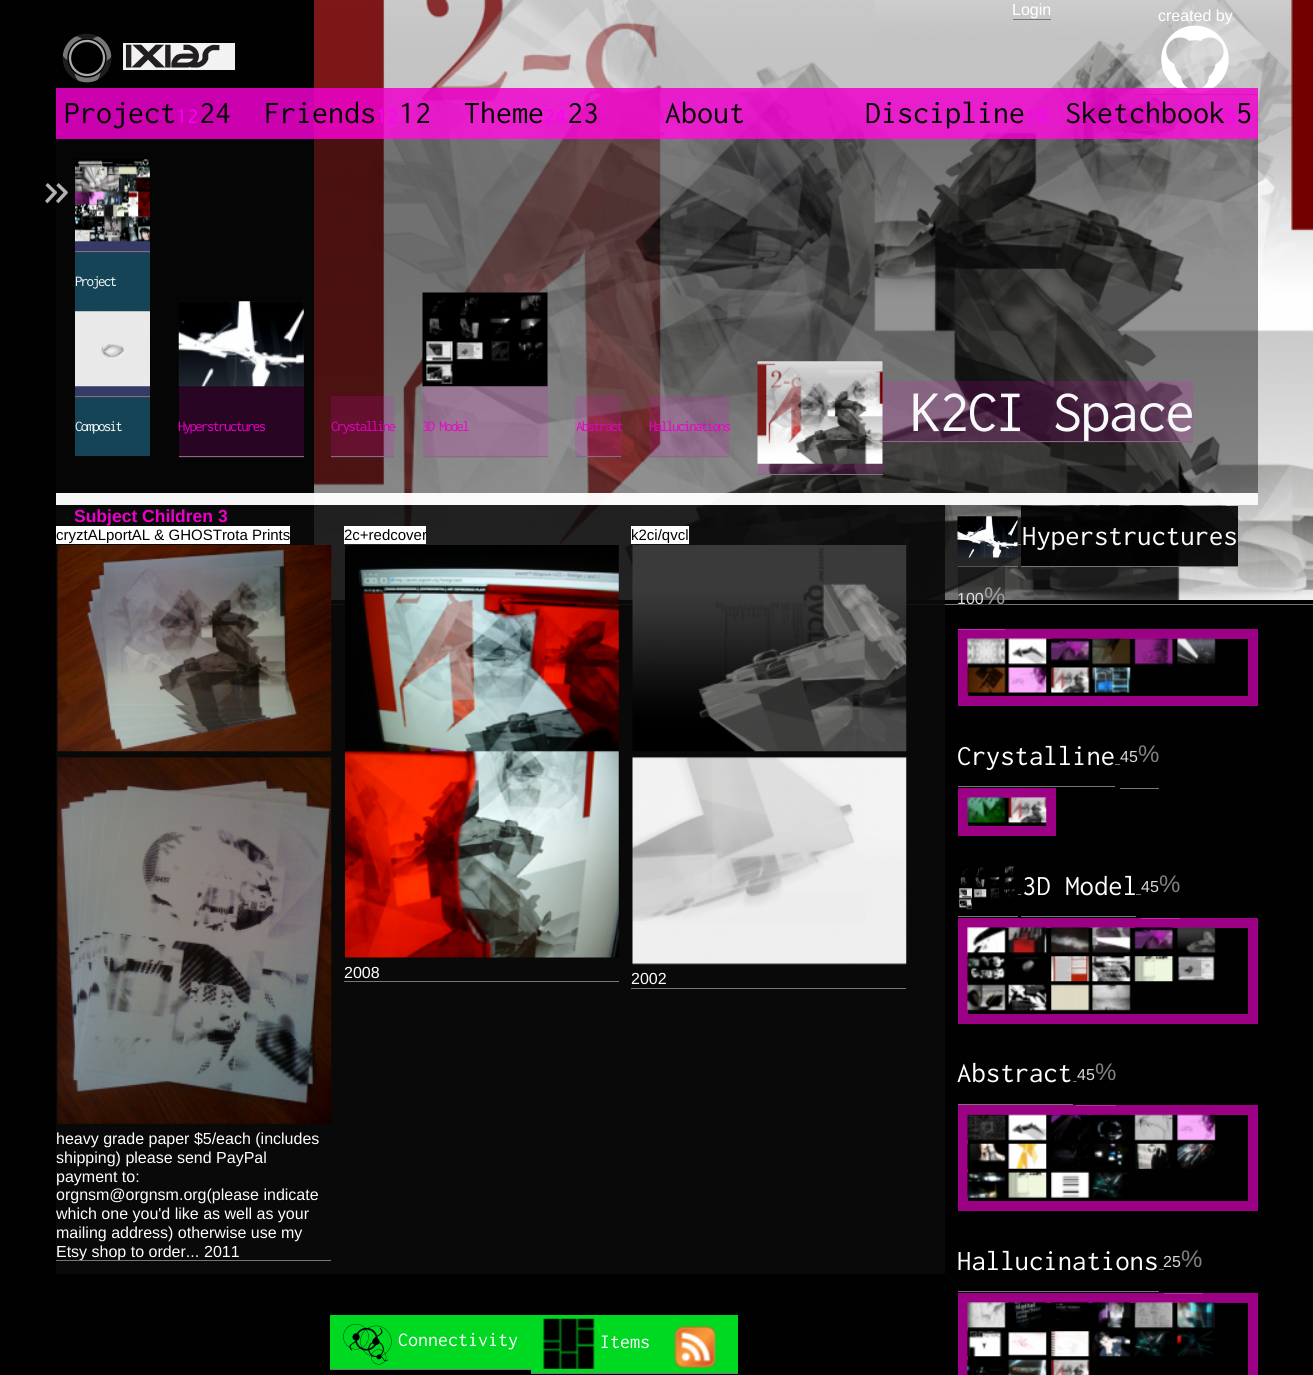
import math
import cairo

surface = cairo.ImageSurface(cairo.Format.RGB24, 1313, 1375)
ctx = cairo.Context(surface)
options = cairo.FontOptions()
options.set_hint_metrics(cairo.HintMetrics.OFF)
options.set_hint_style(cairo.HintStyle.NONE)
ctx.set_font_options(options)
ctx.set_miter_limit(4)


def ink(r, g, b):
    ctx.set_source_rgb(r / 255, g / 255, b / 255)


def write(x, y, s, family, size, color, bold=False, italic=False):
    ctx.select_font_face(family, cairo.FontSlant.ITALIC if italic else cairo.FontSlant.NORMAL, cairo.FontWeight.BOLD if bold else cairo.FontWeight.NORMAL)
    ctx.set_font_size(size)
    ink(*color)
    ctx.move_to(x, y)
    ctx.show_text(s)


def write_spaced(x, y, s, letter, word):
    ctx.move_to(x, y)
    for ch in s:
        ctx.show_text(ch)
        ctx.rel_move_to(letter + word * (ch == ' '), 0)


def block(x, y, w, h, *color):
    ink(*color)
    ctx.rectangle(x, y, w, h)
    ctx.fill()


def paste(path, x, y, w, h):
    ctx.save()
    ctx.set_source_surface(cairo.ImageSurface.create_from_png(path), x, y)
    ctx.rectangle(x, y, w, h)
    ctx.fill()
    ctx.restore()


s1 = dict(family="Liberation Sans", size=16, color=(255, 255, 255))
s2 = dict(family="Inconsolata Medium", size=32, color=(0, 0, 0))
s3 = dict(family="Inconsolata Medium", size=22, color=(252, 0, 251))
s4 = dict(family="Liberation Sans", size=17.5, color=(238, 0, 204), bold=True)
s5 = dict(family="Liberation Sans", size=15, color=(0, 0, 0))
s6 = dict(family="Inconsolata Medium", size=28.75, color=(255, 255, 255))
s7 = dict(family="Liberation Sans", size=16, color=(224, 224, 224))
s8 = dict(family="Liberation Sans", size=24, color=(157, 157, 156))
s9 = dict(family="Liberation Sans", size=16, color=(217, 217, 217))
s10 = dict(family="Liberation Sans", size=24, color=(128, 128, 128))
s11 = dict(family="Inconsolata Medium", size=20, color=(255, 255, 255))

ink(1, 1, 1)
ctx.paint()
paste("pic1.png", 314, 0, 999, 600)
block(331, 604, 982, 1, 119, 119, 119)
block(1013, 19, 38, 1, 119, 119, 119)
write(1012, 15, "Login", **s1)
block(1133, 94, 125, 1, 119, 119, 119)
write(1158, 21, "created by", **s1)
paste("pic2.png", 1161, 25, 68, 68)
paste("pic3.png", 62, 33, 50, 50)
block(123, 43, 112, 27, 242, 242, 242)
paste("pic4.png", 125, 44, 95, 24)
block(56, 88, 200, 51, 202, 0, 174)
write(64, 123, "Project", **s2)
write(176, 123, "12", **s3)
write(199, 123, "24", **s2)
ctx.set_source_rgba(0.933, 0, 0.8, 0.85)
ctx.rectangle(256, 88, 200, 51)
ctx.fill()
write(264, 123, "Friends", **s2)
write(376, 123, "12", **s3)
write(399, 123, "12", **s2)
ctx.set_source_rgba(0.933, 0, 0.8, 0.85)
ctx.rectangle(456, 88, 200, 51)
ctx.fill()
write(464, 123, "Theme", **s2)
write(544, 123, "24", **s3)
write(567, 123, "23", **s2)
ctx.set_source_rgba(0.933, 0, 0.8, 0.85)
ctx.rectangle(656, 88, 200, 51)
ctx.fill()
write(665, 123, "About", **s2)
ctx.set_source_rgba(0.933, 0, 0.8, 0.85)
ctx.rectangle(856, 88, 200, 51)
ctx.fill()
write(865, 123, "Discipline", **s2)
write(1025, 123, "19", **s3)
ctx.set_source_rgba(0.933, 0, 0.8, 0.85)
ctx.rectangle(1056, 88, 202, 51)
ctx.fill()
write(1065, 123, "Sketchbook", **s2)
write(1225, 123, "5", **s3)
write(1236, 123, "5", **s2)
ctx.set_source_rgba(0.043, 0.043, 0.043, 0.44)
ctx.rectangle(56, 139, 1202, 366)
ctx.fill()
ctx.set_source_rgba(1, 1, 1, 0.96)
ctx.rectangle(56, 493, 1202, 12)
ctx.fill()
block(75, 253, 75, 203, 20, 68, 85)
ctx.set_font_size(60)
ink(179, 179, 179)
write_spaced(41, 207, "»", -1.75, 0)
block(75, 158, 75, 95, 53, 58, 103)
block(75, 251, 75, 1, 119, 119, 119)
paste("pic5.png", 75, 158, 75, 84)
ctx.set_font_size(15)
ink(248, 249, 250)
write_spaced(75, 286, "Project", -1.75, 0)
block(75, 311, 75, 87, 53, 58, 103)
block(75, 396, 75, 1, 119, 119, 119)
paste("pic6.png", 75, 311, 75, 76)
ink(248, 249, 250)
write_spaced(75, 431, "Composit", -1.75, 0)
block(179, 301, 125, 157, 40, 5, 35)
block(179, 456, 125, 1, 119, 119, 119)
paste("pic7.png", 178, 301, 126, 86)
ink(228, 0, 196)
write_spaced(178, 431, "Hyperstructures", -1.75, 0)
ctx.set_source_rgba(0.933, 0, 0.8, 0.15)
ctx.rectangle(331, 396, 63, 62)
ctx.fill()
block(331, 456, 63, 1, 119, 119, 119)
ink(228, 0, 196)
write_spaced(331, 431, "Crystalline", -1.75, 0)
ctx.set_source_rgba(0.933, 0, 0.8, 0.15)
ctx.rectangle(423, 293, 125, 165)
ctx.fill()
block(423, 456, 125, 1, 119, 119, 119)
paste("pic8.png", 422, 292, 126, 95)
ink(234, 6, 201)
write_spaced(422, 431, "3D Model", -1.75, 0)
ctx.set_source_rgba(0.933, 0, 0.8, 0.15)
ctx.rectangle(575, 396, 46, 62)
ctx.fill()
block(575, 456, 46, 1, 119, 119, 119)
ink(228, 0, 196)
write_spaced(576, 431, "Abstract", -1.75, 0)
ctx.set_source_rgba(0.933, 0, 0.8, 0.15)
ctx.rectangle(649, 396, 80, 62)
ctx.fill()
block(649, 456, 80, 1, 119, 119, 119)
ink(238, 0, 204)
write_spaced(649, 431, "Hallucinations", -1.75, 0)
ctx.set_source_rgba(0.933, 0, 0.8, 0.15)
ctx.rectangle(758, 361, 125, 113)
ctx.fill()
block(758, 474, 125, 1, 119, 119, 119)
ctx.set_source_rgba(0.933, 0, 0.8, 0.15)
ctx.rectangle(883, 381, 27, 62)
ctx.fill()
block(883, 441, 27, 1, 119, 119, 119)
ctx.set_source_rgba(0.933, 0, 0.8, 0.15)
ctx.rectangle(910, 381, 283, 62)
ctx.fill()
block(910, 441, 283, 1, 119, 119, 119)
paste("pic9.png", 757, 361, 126, 103)
ctx.set_font_size(60)
ink(248, 249, 250)
write_spaced(911, 431, "K2CI Space", -1.75, 0)
ctx.set_source_rgba(0.043, 0.043, 0.043, 0.9)
ctx.rectangle(56, 505, 889, 769)
ctx.fill()
write(74, 522, "Subject Children 3", **s4)
block(56, 1260, 275, 1, 119, 119, 119)
block(56, 526, 234, 18, 255, 255, 255)
write(56, 540, "cryztALportAL & GHOSTrota Prints", **s5)
paste("pic10.png", 57, 545, 275, 207)
paste("pic11.png", 57, 757, 275, 367)
write(56, 1144, "heavy grade paper $5/each (includes", **s1)
write(56, 1163, "shipping) please send PayPal", **s1)
write(56, 1182, "payment to:", **s1)
write(56, 1200, "orgnsm@orgnsm.org(please indicate", **s1)
write(56, 1219, "which one you'd like as well as your", **s1)
write(56, 1238, "mailing address) otherwise use my", **s1)
ctx.save()
ctx.rectangle(56, 525, 275, 735)
ctx.clip()
write(56, 1257, "Etsy shop to order...", **s1)
ctx.restore()
write(204, 1257, "2011", **s1)
block(344, 981, 275, 1, 119, 119, 119)
block(344, 526, 82, 18, 255, 255, 255)
write(344, 540, "2c+redcover", **s5)
paste("pic12.png", 345, 545, 274, 413)
write(344, 978, "2008", **s1)
block(631, 988, 275, 1, 119, 119, 119)
block(631, 526, 58, 18, 255, 255, 255)
write(631, 540, "k2ci/qvcl", **s5)
paste("pic13.png", 632, 545, 275, 207)
paste("pic14.png", 632, 757, 275, 208)
write(631, 984, "2002", **s1)
block(958, 566, 60, 1, 119, 119, 119)
block(1018, 544, 4, 1, 119, 119, 119)
block(1021, 566, 217, 1, 119, 119, 119)
block(958, 629, 47, 1, 119, 119, 119)
paste("pic15.png", 957, 516, 61, 42)
ctx.set_source_rgba(0, 0, 0, 0.9)
ctx.rectangle(1021, 506, 217, 60)
ctx.fill()
write(1022, 545, "Hyperstructures", **s6)
ctx.set_source_rgba(0, 0, 0, 0.3)
ctx.rectangle(958, 566, 47, 39)
ctx.fill()
write(957, 604, "100", **s7)
write(984, 604, "%", **s8)
ctx.rectangle(963, 634, 290, 67)
ctx.set_source_rgba(0.933, 0, 0.8, 0.65)
ctx.set_line_width(10)
ctx.stroke()
paste("pic16.png", 967, 638, 39, 27)
paste("pic17.png", 1008, 638, 39, 27)
paste("pic18.png", 1051, 638, 39, 24)
paste("pic19.png", 1092, 638, 39, 27)
paste("pic20.png", 1134, 638, 40, 27)
paste("pic21.png", 1177, 638, 39, 27)
paste("pic22.png", 967, 667, 39, 26)
paste("pic23.png", 1008, 667, 39, 26)
paste("pic24.png", 1051, 667, 39, 26)
paste("pic25.png", 1092, 667, 39, 26)
block(958, 786, 157, 1, 119, 119, 119)
block(1115, 764, 5, 1, 119, 119, 119)
block(1120, 788, 39, 1, 119, 119, 119)
write(957, 765, "Crystalline", **s6)
write(1120, 762, "45", **s9)
write(1138, 762, "%", **s10)
ctx.rectangle(963, 793, 88, 38)
ink(155, 0, 133)
ctx.stroke()
paste("pic26.png", 967, 797, 39, 27)
paste("pic27.png", 1008, 797, 39, 27)
block(958, 916, 60, 1, 119, 119, 119)
block(1018, 894, 4, 1, 119, 119, 119)
block(1021, 894, 1, 1, 12, 12, 12)
block(1021, 916, 115, 1, 119, 119, 119)
block(1136, 894, 5, 1, 119, 119, 119)
block(1141, 918, 39, 1, 119, 119, 119)
paste("pic28.png", 959, 866, 57, 44)
write(1022, 895, "3D Model", **s6)
write(1141, 892, "45", **s9)
write(1159, 892, "%", **s10)
ctx.rectangle(963, 923, 290, 96)
ctx.set_source_rgba(0.933, 0, 0.8, 0.65)
ctx.stroke()
paste("pic29.png", 967, 927, 39, 27)
paste("pic30.png", 1008, 927, 39, 27)
paste("pic31.png", 1051, 927, 39, 26)
paste("pic32.png", 1092, 927, 39, 26)
paste("pic33.png", 1134, 927, 40, 23)
paste("pic34.png", 1177, 927, 39, 27)
paste("pic35.png", 967, 956, 39, 26)
paste("pic36.png", 1015, 957, 24, 15)
paste("pic37.png", 1051, 956, 39, 26)
paste("pic38.png", 1092, 956, 39, 26)
paste("pic39.png", 1134, 956, 40, 26)
paste("pic40.png", 1177, 956, 38, 25)
paste("pic41.png", 967, 984, 39, 27)
paste("pic42.png", 1008, 984, 39, 27)
paste("pic43.png", 1051, 984, 39, 27)
paste("pic44.png", 1092, 984, 39, 27)
block(958, 1104, 115, 1, 119, 119, 119)
block(1073, 1081, 4, 1, 119, 119, 119)
block(1076, 1081, 1, 1, 83, 83, 83)
block(1076, 1105, 40, 1, 119, 119, 119)
write(957, 1082, "Abstract", **s6)
write(1077, 1080, "45", **s9)
write(1095, 1080, "%", **s10)
ctx.rectangle(963, 1110, 290, 96)
ctx.set_source_rgba(0.933, 0, 0.8, 0.65)
ctx.stroke()
paste("pic45.png", 967, 1114, 39, 27)
paste("pic46.png", 1008, 1114, 39, 27)
paste("pic47.png", 1051, 1114, 38, 27)
paste("pic48.png", 1092, 1114, 39, 27)
paste("pic49.png", 1134, 1114, 40, 27)
paste("pic50.png", 1177, 1114, 39, 27)
paste("pic51.png", 967, 1143, 39, 26)
paste("pic52.png", 1008, 1143, 39, 26)
paste("pic53.png", 1051, 1144, 38, 20)
paste("pic54.png", 1094, 1143, 35, 23)
paste("pic55.png", 1135, 1143, 35, 26)
paste("pic56.png", 1177, 1143, 38, 26)
paste("pic57.png", 967, 1171, 39, 27)
paste("pic58.png", 1008, 1171, 39, 27)
paste("pic59.png", 1051, 1171, 39, 27)
paste("pic60.png", 1092, 1172, 36, 26)
block(958, 1291, 201, 1, 119, 119, 119)
block(1159, 1269, 5, 1, 119, 119, 119)
block(1164, 1293, 39, 1, 119, 119, 119)
write(957, 1270, "Hallucinations", **s6)
write(1163, 1267, "25", **s9)
write(1181, 1267, "%", **s10)
ctx.rectangle(963, 1298, 290, 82)
ctx.set_source_rgba(0.933, 0, 0.8, 0.65)
ctx.stroke()
paste("pic61.png", 967, 1302, 39, 27)
paste("pic62.png", 1008, 1302, 39, 26)
paste("pic63.png", 1051, 1302, 39, 18)
paste("pic64.png", 1092, 1302, 39, 27)
paste("pic65.png", 1134, 1302, 40, 27)
paste("pic66.png", 1177, 1302, 38, 27)
paste("pic67.png", 967, 1331, 35, 26)
paste("pic68.png", 1008, 1332, 39, 24)
paste("pic69.png", 1051, 1331, 39, 26)
paste("pic70.png", 1092, 1331, 39, 26)
paste("pic71.png", 1134, 1331, 37, 26)
paste("pic72.png", 1177, 1331, 37, 26)
paste("pic73.png", 967, 1359, 37, 16)
paste("pic74.png", 1008, 1359, 39, 16)
paste("pic75.png", 1051, 1359, 39, 16)
block(330, 1315, 201, 54, 0, 217, 34)
block(330, 1369, 201, 1, 119, 119, 119)
paste("pic76.png", 343, 1323, 49, 42)
write(398, 1346, "Connectivity", **s11)
block(531, 1315, 207, 58, 0, 217, 34)
block(531, 1373, 207, 1, 119, 119, 119)
paste("pic77.png", 543, 1318, 52, 51)
write(600, 1348, "Items", **s11)
paste("pic78.png", 674, 1325, 42, 43)
surface.write_to_png("screenshot.png")
